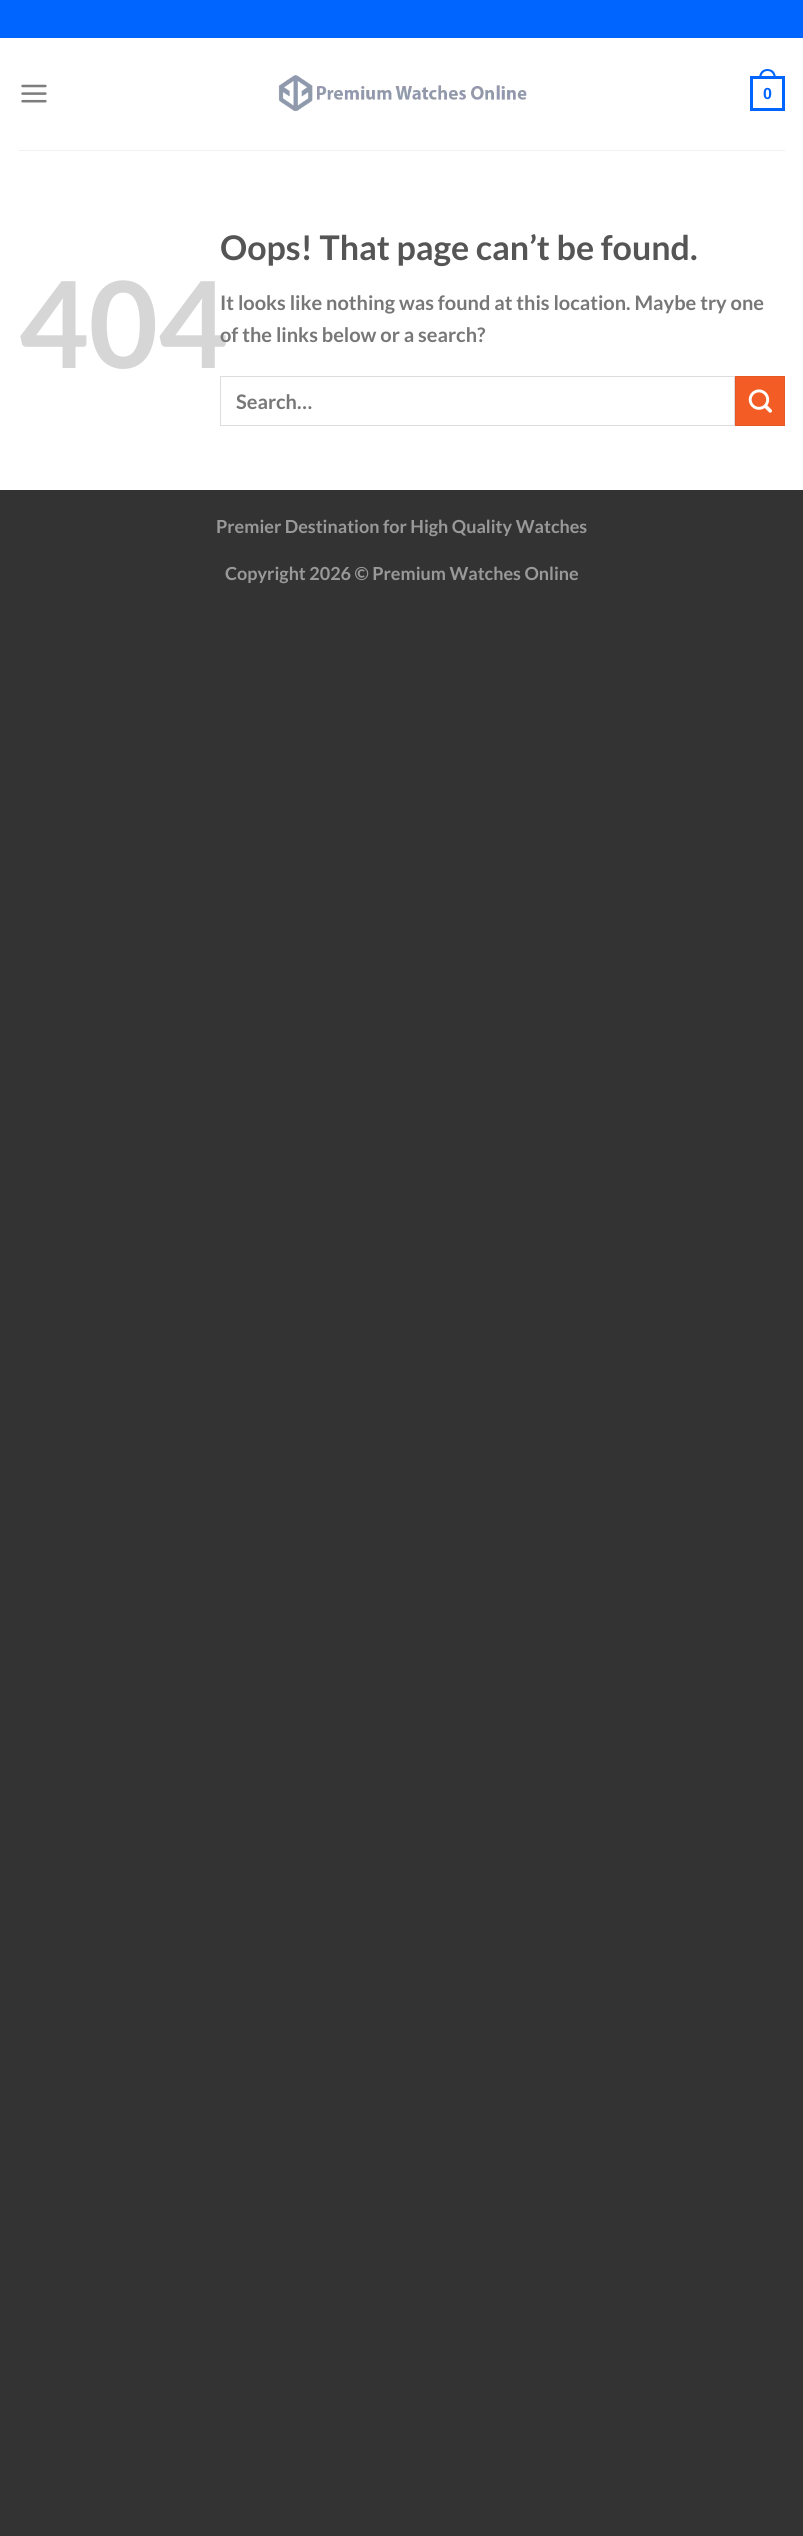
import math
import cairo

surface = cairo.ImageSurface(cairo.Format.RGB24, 803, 2536)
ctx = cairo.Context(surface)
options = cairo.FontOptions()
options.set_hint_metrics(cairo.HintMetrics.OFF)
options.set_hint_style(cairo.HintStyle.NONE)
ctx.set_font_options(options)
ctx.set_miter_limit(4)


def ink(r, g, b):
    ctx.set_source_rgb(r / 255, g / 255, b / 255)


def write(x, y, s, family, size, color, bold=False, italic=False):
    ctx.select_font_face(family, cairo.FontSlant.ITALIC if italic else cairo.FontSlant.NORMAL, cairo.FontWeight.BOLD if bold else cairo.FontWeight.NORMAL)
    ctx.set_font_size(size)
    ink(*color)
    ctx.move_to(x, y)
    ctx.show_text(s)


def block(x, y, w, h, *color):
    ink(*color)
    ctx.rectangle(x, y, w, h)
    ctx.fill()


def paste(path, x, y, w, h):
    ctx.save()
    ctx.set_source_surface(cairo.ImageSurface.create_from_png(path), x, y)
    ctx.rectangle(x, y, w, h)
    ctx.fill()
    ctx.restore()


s1 = dict(family="Liberation Sans", size=16, color=(0, 100, 255), bold=True)
s2 = dict(family="Lato", size=120, color=(214, 214, 214), bold=True)
s3 = dict(family="Lato", size=34, color=(85, 85, 85), bold=True)
s4 = dict(family="Lato", size=20, color=(119, 119, 119), bold=True)
s5 = dict(family="Lato", size=18, color=(153, 153, 153), bold=True)

ink(51, 51, 51)
ctx.paint()
block(0, 38, 803, 452, 255, 255, 255)
block(0, 0, 803, 38, 0, 100, 255)
paste("pic1.png", 21, 84, 26, 19)
paste("pic2.png", 278, 75, 249, 36)
ctx.rectangle(751.5, 77.5, 32, 32)
ctx.set_line_width(3)
ctx.stroke()
ctx.set_fill_rule(cairo.FillRule.EVEN_ODD)
ctx.new_path()
ctx.move_to(767.5, 69)
ctx.curve_to(773.5, 69, 776, 73.5, 776, 79)
ctx.line_to(759, 79)
ctx.curve_to(759, 73.5, 761.5, 69, 767.5, 69)
ctx.close_path()
ctx.move_to(767.5, 71)
ctx.curve_to(772, 71, 774, 75, 774, 79)
ctx.line_to(761, 79)
ctx.curve_to(761, 75, 763, 71, 767.5, 71)
ctx.close_path()
ctx.fill()
write(763, 99, "0", **s1)
block(19, 150, 766, 1, 241, 241, 241)
write(19, 368, "404", **s2)
write(220, 260, "Oops! That page can’t be found.", **s3)
write(220, 310, "It looks like nothing was found at this location. Maybe try one", **s4)
write(220, 342, "of the links below or a search?", **s4)
ctx.rectangle(220.5, 376.5, 514, 49)
ink(221, 221, 221)
ctx.set_line_width(1)
ctx.stroke()
write(236, 409, "Search…", **s4)
ink(243, 92, 36)
ctx.rectangle(735.5, 376.5, 49, 49)
ctx.fill_preserve()
ink(231, 87, 34)
ctx.stroke()
paste("pic3.png", 748, 389, 24, 24)
write(216, 533, "Premier Destination for High Quality Watches", **s5)
write(225, 580, "Copyright 2026 © Premium Watches Online", **s5)
surface.write_to_png("screenshot.png")
